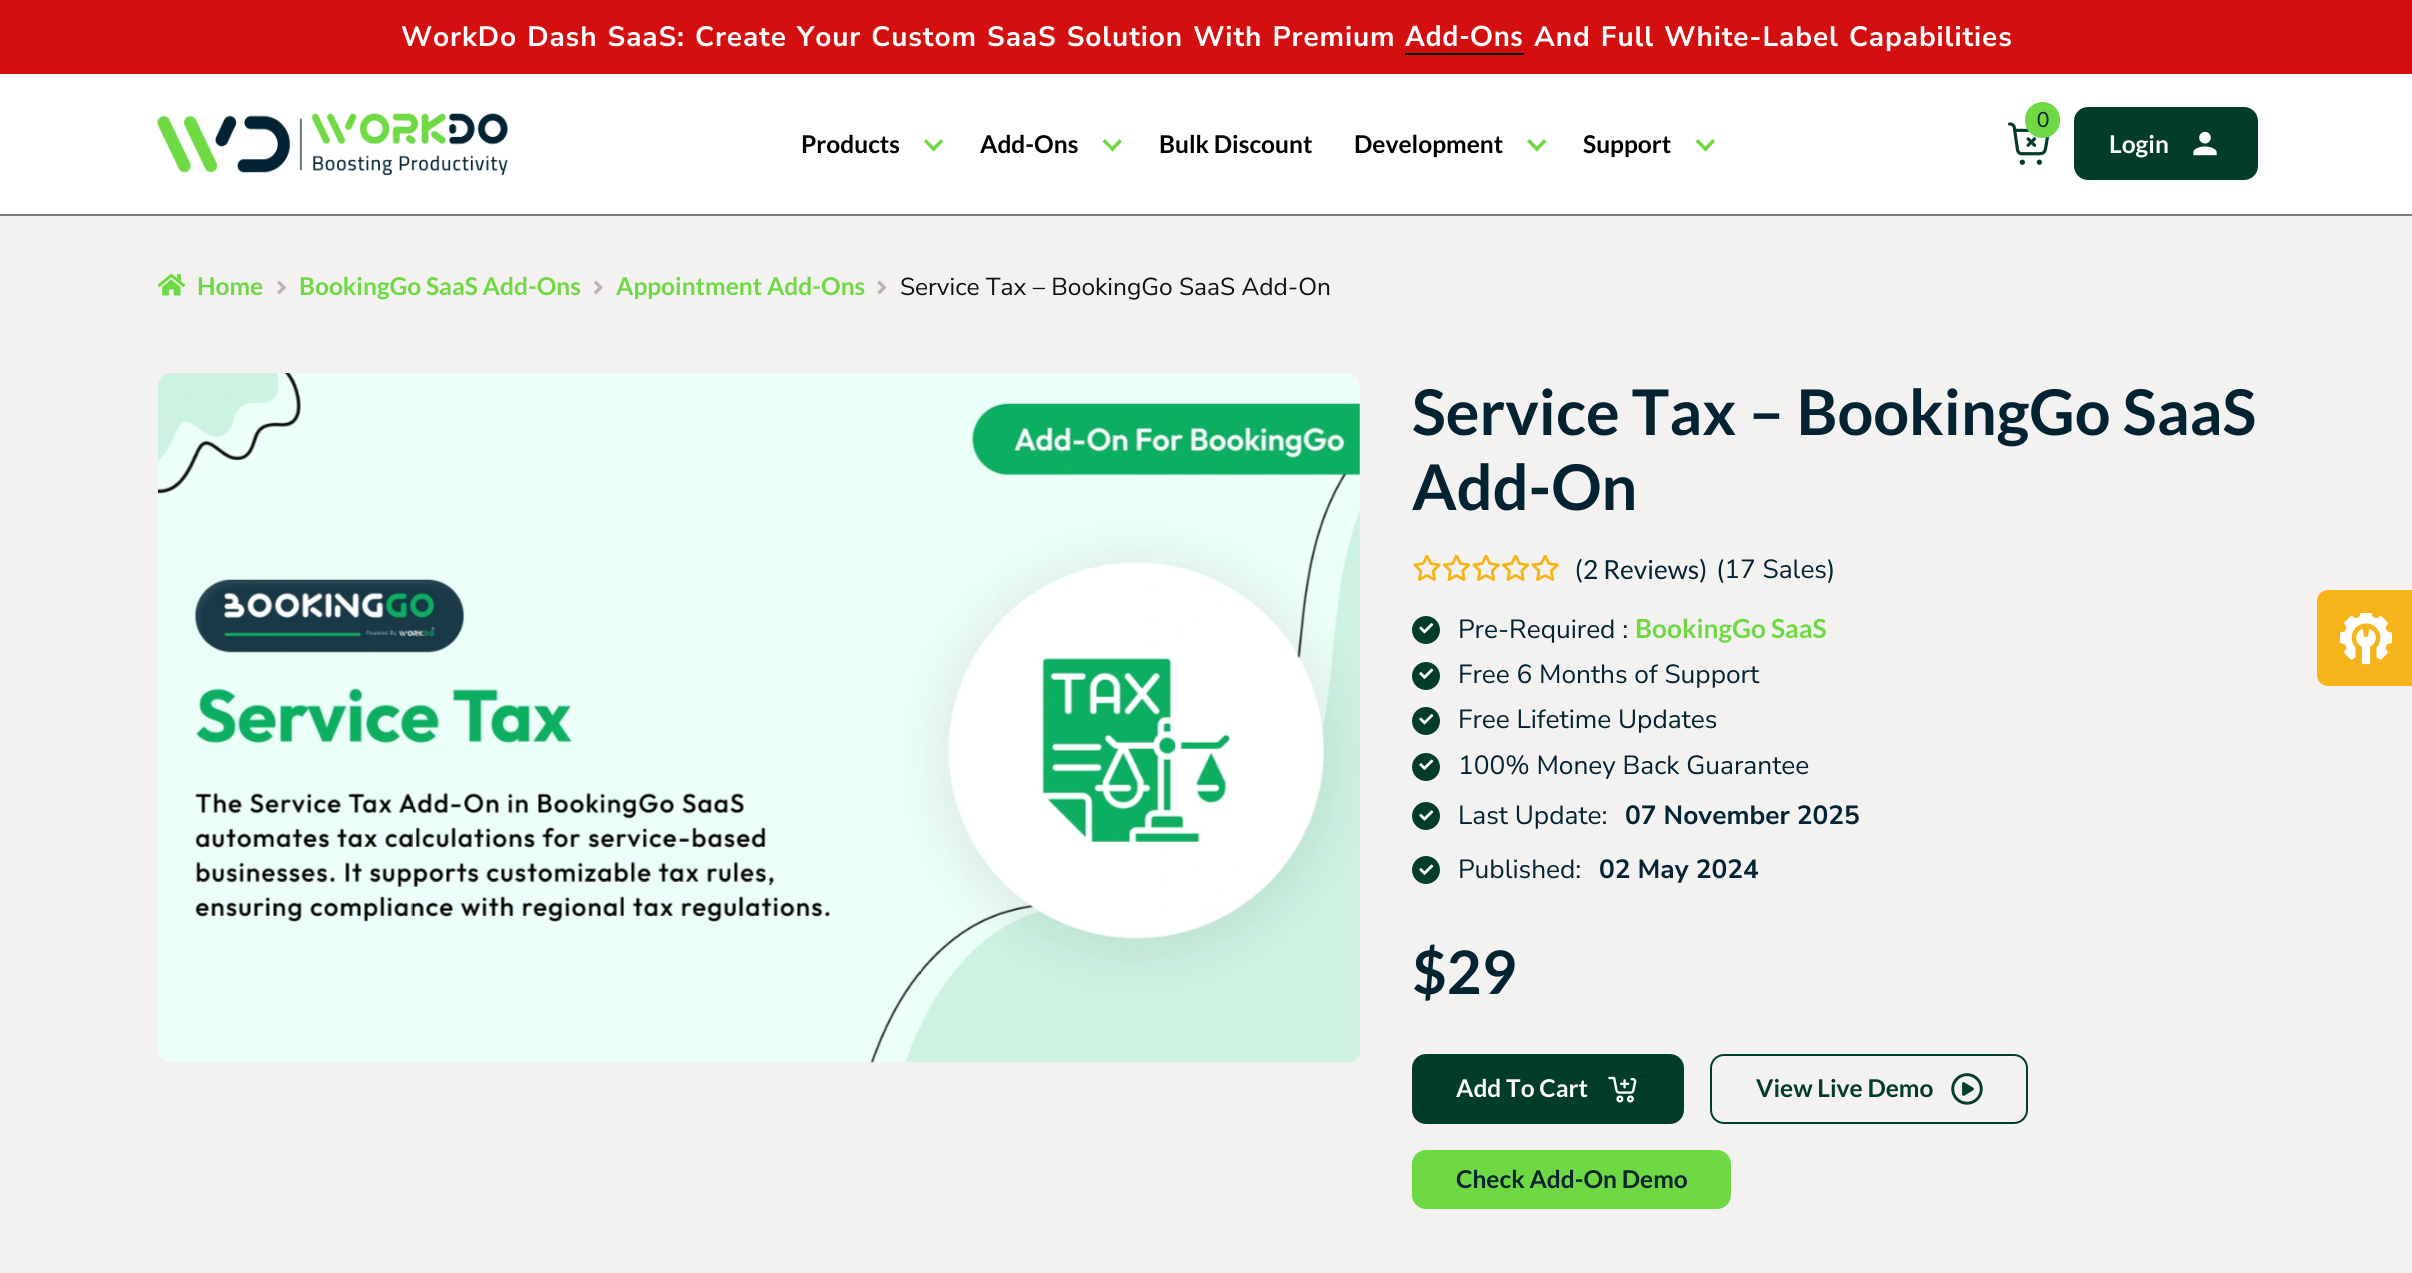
import math
import cairo

surface = cairo.ImageSurface(cairo.Format.RGB24, 2412, 1273)
ctx = cairo.Context(surface)
options = cairo.FontOptions()
options.set_hint_metrics(cairo.HintMetrics.OFF)
options.set_hint_style(cairo.HintStyle.NONE)
ctx.set_font_options(options)
ctx.set_miter_limit(4)


def ink(r, g, b):
    ctx.set_source_rgb(r / 255, g / 255, b / 255)


def write(x, y, s, family, size, color, bold=False, italic=False):
    ctx.select_font_face(family, cairo.FontSlant.ITALIC if italic else cairo.FontSlant.NORMAL, cairo.FontWeight.BOLD if bold else cairo.FontWeight.NORMAL)
    ctx.set_font_size(size)
    ink(*color)
    ctx.move_to(x, y)
    ctx.show_text(s)


def write_spaced(x, y, s, letter, word):
    ctx.move_to(x, y)
    for ch in s:
        ctx.show_text(ch)
        ctx.rel_move_to(letter + word * (ch == ' '), 0)


def block(x, y, w, h, *color):
    ink(*color)
    ctx.rectangle(x, y, w, h)
    ctx.fill()


def round_path(x, y, w, h, r):
    ctx.new_sub_path()
    for i, (u, v) in enumerate([(x + w - r, y + h - r), (x + r, y + h - r), (x + r, y + r), (x + w - r, y + r)]):
        ctx.arc(u, v, r, i * math.pi / 2, (i + 1) * math.pi / 2)
    ctx.close_path()


def paste(path, x, y, w, h):
    ctx.save()
    ctx.set_source_surface(cairo.ImageSurface.create_from_png(path), x, y)
    ctx.rectangle(x, y, w, h)
    ctx.fill()
    ctx.restore()


s1 = dict(family="Lato", size=24.5, color=(0, 0, 0), bold=True)
s2 = dict(family="Lato", size=21, color=(2, 35, 50))
s3 = dict(family="Lato", size=24.5, color=(255, 255, 255), bold=True)
s4 = dict(family="Lato", size=24.5, color=(111, 217, 67), bold=True)
s5 = dict(family="Nunito Sans", size=24.5, color=(17, 17, 17))
s6 = dict(family="Lato", size=63, color=(2, 35, 50), bold=True)
s7 = dict(family="Lato", size=26.25, color=(2, 35, 50))
s8 = dict(family="Nunito Sans", size=26.25, color=(2, 35, 50))
s9 = dict(family="Lato", size=26.25, color=(111, 217, 67), bold=True)
s10 = dict(family="Nunito Sans", size=26.25, color=(2, 35, 50), bold=True)
s11 = dict(family="Lato", size=60, color=(2, 35, 50), bold=True)
s12 = dict(family="Lato", size=24.5, color=(1, 61, 41), bold=True)
s13 = dict(family="Lato", size=24.5, color=(2, 35, 50), bold=True)

ink(255, 255, 255)
ctx.paint()
block(0, 214, 2412, 2, 126, 126, 126)
block(0, 0, 2412, 74, 212, 15, 15)
ctx.select_font_face("Nunito Sans", cairo.FontSlant.NORMAL, cairo.FontWeight.BOLD)
ctx.set_font_size(28)
ink(255, 255, 255)
write_spaced(401, 46, "WorkDo Dash SaaS: Create Your Custom SaaS Solution With Premium", 0.88, 1.75)
ctx.select_font_face("Lato", cairo.FontSlant.NORMAL, cairo.FontWeight.BOLD)
write_spaced(1405, 46, "Add-Ons", 0.88, 0)
block(1405, 53, 119, 2, 0, 0, 0)
ctx.select_font_face("Nunito Sans", cairo.FontSlant.NORMAL, cairo.FontWeight.BOLD)
ink(255, 255, 255)
write_spaced(1534, 46, "And Full White-Label Capabilities", 0.88, 1.75)
paste("pic1.png", 157, 113, 351, 62)
write(801, 153, "Products", **s1)
ink(111, 217, 67)
ctx.new_path()
ctx.move_to(941, 139)
ctx.line_to(943.5, 141.5)
ctx.line_to(933.5, 151.5)
ctx.line_to(931, 149)
ctx.close_path()
ctx.fill()
ctx.new_path()
ctx.move_to(926, 139)
ctx.line_to(936, 149)
ctx.line_to(933.5, 151.5)
ctx.line_to(924, 141.5)
ctx.close_path()
ctx.fill()
write(980, 153, "Add-Ons", **s1)
ink(111, 217, 67)
ctx.new_path()
ctx.move_to(1119.5, 139)
ctx.line_to(1122, 141.5)
ctx.line_to(1112.5, 151.5)
ctx.line_to(1110, 149)
ctx.close_path()
ctx.fill()
ctx.new_path()
ctx.move_to(1105, 139)
ctx.line_to(1114.5, 149)
ctx.line_to(1112.5, 151.5)
ctx.line_to(1102.5, 141.5)
ctx.close_path()
ctx.fill()
write(1159, 153, "Bulk Discount", **s1)
write(1354, 153, "Development", **s1)
ink(111, 217, 67)
ctx.new_path()
ctx.move_to(1544, 139)
ctx.line_to(1546.5, 141.5)
ctx.line_to(1537, 151.5)
ctx.line_to(1534.5, 149)
ctx.close_path()
ctx.fill()
ctx.new_path()
ctx.move_to(1529.5, 139)
ctx.line_to(1539.5, 149)
ctx.line_to(1537, 151.5)
ctx.line_to(1527, 141.5)
ctx.close_path()
ctx.fill()
write(1583, 153, "Support", **s1)
ink(111, 217, 67)
ctx.new_path()
ctx.move_to(1712.5, 139)
ctx.line_to(1715, 141.5)
ctx.line_to(1705.5, 151.5)
ctx.line_to(1703, 149)
ctx.close_path()
ctx.fill()
ctx.new_path()
ctx.move_to(1698, 139)
ctx.line_to(1707.5, 149)
ctx.line_to(1705.5, 151.5)
ctx.line_to(1695.5, 141.5)
ctx.close_path()
ctx.fill()
paste("pic2.png", 2008, 122, 42, 43)
round_path(2025, 102, 35, 36, 17.5)
ctx.fill()
write(2037, 127, "0", **s2)
ink(1, 61, 41)
round_path(2074, 107, 184, 73, 14)
ctx.fill()
write(2109, 153, "Login", **s3)
paste("pic3.png", 2193, 131, 24, 25)
block(0, 216, 2412, 1057, 244, 241, 241)
paste("pic4.png", 157, 274, 28, 22)
write(197, 295, "Home", **s4)
paste("pic5.png", 277, 280, 9, 15)
write(299, 295, "BookingGo SaaS Add-Ons", **s4)
paste("pic6.png", 594, 280, 9, 15)
write(616, 295, "Appointment Add-Ons", **s4)
paste("pic7.png", 877, 280, 10, 15)
write(900, 295, "Service Tax – BookingGo SaaS Add-On", **s5)
paste("pic8.png", 158, 373, 1202, 690)
write(1412, 435, "Service Tax – BookingGo SaaS", **s6)
write(1412, 510, "Add-On", **s6)
paste("pic9.png", 1413, 555, 146, 26)
paste("pic10.png", 1413, 555, 146, 26)
write(1575, 579, "(2 Reviews)", **s7)
write(1716, 578, "(17 Sales)", **s8)
ink(1, 61, 41)
ctx.new_path()
ctx.arc(1426, 630, 14, 0, 2 * math.pi)
ctx.fill()
paste("pic11.png", 1419, 623, 15, 11)
write(1458, 638, "Pre-Required :", **s8)
write(1635, 638, "BookingGo SaaS", **s9)
ink(1, 61, 41)
ctx.new_path()
ctx.arc(1426, 676, 14, 0, 2 * math.pi)
ctx.fill()
paste("pic12.png", 1419, 668, 15, 11)
write(1458, 683, "Free 6 Months of Support", **s8)
ink(1, 61, 41)
ctx.new_path()
ctx.arc(1426, 721, 14, 0, 2 * math.pi)
ctx.fill()
paste("pic11.png", 1419, 714, 15, 11)
write(1458, 728, "Free Lifetime Updates", **s8)
ink(1, 61, 41)
ctx.new_path()
ctx.arc(1426, 767, 14, 0, 2 * math.pi)
ctx.fill()
paste("pic12.png", 1419, 759, 15, 11)
write(1458, 774, "100% Money Back Guarantee", **s8)
ink(1, 61, 41)
ctx.new_path()
ctx.arc(1426, 816, 14, 0, 2 * math.pi)
ctx.fill()
paste("pic13.png", 1419, 810, 15, 11)
write(1458, 824, "Last Update:", **s8)
write(1625, 824, "07 November 2025", **s10)
ink(1, 61, 41)
ctx.new_path()
ctx.arc(1426, 870, 14, 0, 2 * math.pi)
ctx.fill()
paste("pic12.png", 1419, 864, 15, 11)
write(1458, 878, "Published:", **s8)
write(1599, 878, "02 May 2024", **s10)
write(1412, 994, "$29", **s11)
ink(1, 61, 41)
round_path(1412, 1054, 272, 70, 14)
ctx.fill()
write(1456, 1097, "Add To Cart", **s3)
paste("pic14.png", 1608, 1076, 29, 27)
round_path(1711, 1055, 316, 68, 13)
ink(1, 61, 41)
ctx.stroke()
write(1756, 1097, "View Live Demo", **s12)
paste("pic15.png", 1951, 1073, 32, 32)
ink(111, 217, 67)
round_path(1412, 1150, 319, 59, 14)
ctx.fill()
write(1456, 1188, "Check Add-On Demo", **s13)
ink(244, 180, 26)
ctx.new_path()
ctx.move_to(2328, 590)
ctx.line_to(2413, 590)
ctx.line_to(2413, 686)
ctx.line_to(2328, 686)
ctx.curve_to(2322, 686, 2317, 681, 2317, 675)
ctx.line_to(2317, 601)
ctx.curve_to(2317, 595, 2322, 590, 2328, 590)
ctx.close_path()
ctx.fill()
paste("pic16.png", 2340, 613, 52, 52)
surface.write_to_png("screenshot.png")
